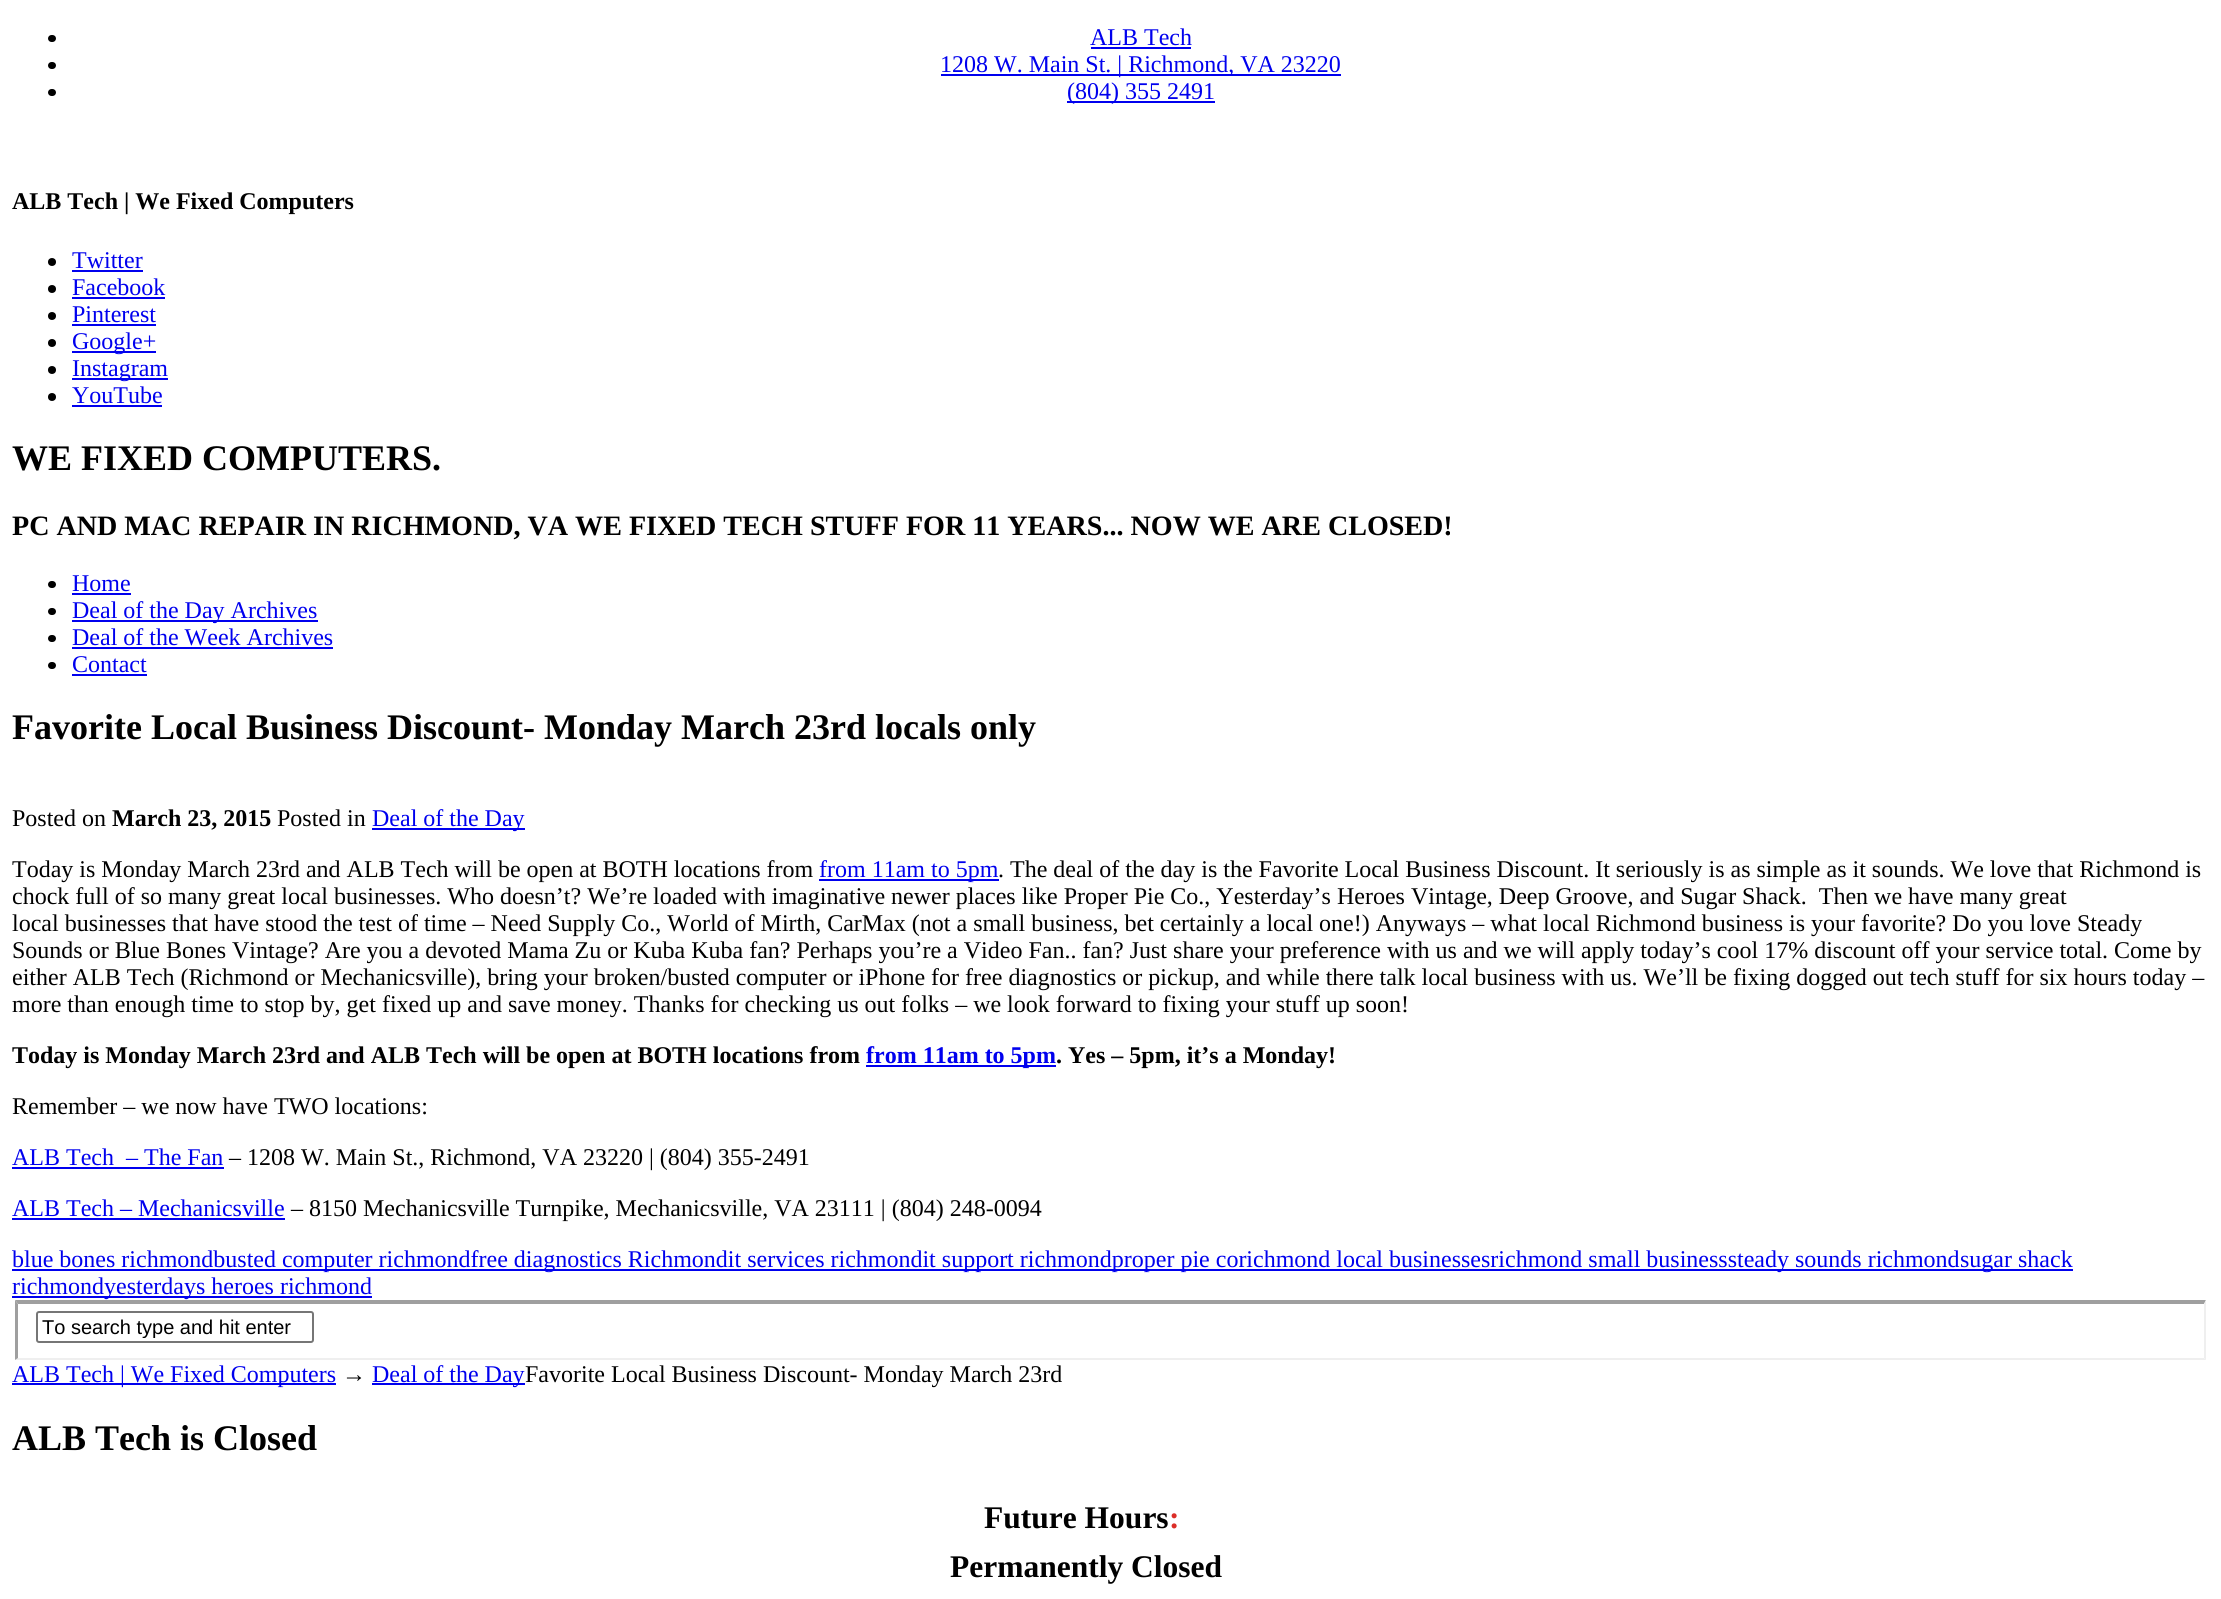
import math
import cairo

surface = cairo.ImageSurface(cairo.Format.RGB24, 2221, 1599)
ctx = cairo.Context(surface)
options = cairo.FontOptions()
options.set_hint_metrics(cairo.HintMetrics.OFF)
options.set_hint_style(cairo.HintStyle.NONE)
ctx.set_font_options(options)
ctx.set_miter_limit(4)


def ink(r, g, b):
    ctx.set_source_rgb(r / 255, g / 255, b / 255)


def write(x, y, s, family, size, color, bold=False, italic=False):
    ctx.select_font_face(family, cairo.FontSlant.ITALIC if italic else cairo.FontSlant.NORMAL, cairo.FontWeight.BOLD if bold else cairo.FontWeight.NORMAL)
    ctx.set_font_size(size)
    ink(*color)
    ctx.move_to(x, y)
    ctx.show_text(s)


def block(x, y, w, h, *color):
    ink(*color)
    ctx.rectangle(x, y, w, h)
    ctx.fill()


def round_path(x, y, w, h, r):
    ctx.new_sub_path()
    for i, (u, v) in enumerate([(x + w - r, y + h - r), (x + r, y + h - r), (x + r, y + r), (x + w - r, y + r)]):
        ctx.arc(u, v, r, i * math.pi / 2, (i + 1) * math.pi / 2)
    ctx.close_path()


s1 = dict(family="Liberation Serif", size=24, color=(0, 0, 238))
s2 = dict(family="Liberation Serif", size=24, color=(0, 0, 0), bold=True)
s3 = dict(family="Liberation Serif", size=36, color=(0, 0, 0), bold=True)
s4 = dict(family="Liberation Serif", size=28.08, color=(0, 0, 0), bold=True)
s5 = dict(family="Liberation Serif", size=24, color=(0, 0, 0))
s6 = dict(family="Liberation Serif", size=24, color=(0, 0, 238), bold=True)
s7 = dict(family="Liberation Sans", size=20, color=(0, 0, 0))
s8 = dict(family="Liberation Serif", size=31.5, color=(0, 0, 0), bold=True)
s9 = dict(family="Liberation Serif", size=31.5, color=(219, 46, 40), bold=True)

ink(255, 255, 255)
ctx.paint()
ink(0, 0, 0)
round_path(48, 35, 8, 7, 3.5)
ctx.fill()
write(1090, 45, "ALB Tech", **s1)
block(1091, 47, 100, 2, 0, 0, 238)
ink(0, 0, 0)
round_path(48, 62, 8, 7, 3.5)
ctx.fill()
block(941, 74, 400, 2, 0, 0, 238)
write(940, 72, "1208 W. Main St. | Richmond, VA 23220", **s1)
ink(0, 0, 0)
round_path(48, 89, 8, 7, 3.5)
ctx.fill()
block(1067, 101, 148, 2, 0, 0, 238)
write(1067, 99, "(804) 355 2491", **s1)
write(12, 209, "ALB Tech | We Fixed Computers", **s2)
ctx.new_path()
ctx.arc(52, 262, 4, 0, 2 * math.pi)
ctx.fill()
write(72, 268, "Twitter", **s1)
block(72, 270, 71, 2, 0, 0, 238)
ink(0, 0, 0)
ctx.new_path()
ctx.arc(52, 289, 4, 0, 2 * math.pi)
ctx.fill()
write(72, 295, "Facebook", **s1)
block(72, 297, 93, 2, 0, 0, 238)
ink(0, 0, 0)
ctx.new_path()
ctx.arc(52, 316, 4, 0, 2 * math.pi)
ctx.fill()
write(72, 322, "Pinterest", **s1)
block(72, 324, 84, 2, 0, 0, 238)
ink(0, 0, 0)
ctx.new_path()
ctx.arc(52, 343, 4, 0, 2 * math.pi)
ctx.fill()
block(72, 351, 84, 2, 0, 0, 238)
write(72, 349, "Google+", **s1)
ink(0, 0, 0)
ctx.new_path()
ctx.arc(52, 370, 4, 0, 2 * math.pi)
ctx.fill()
block(72, 378, 96, 2, 0, 0, 238)
write(72, 376, "Instagram", **s1)
ink(0, 0, 0)
ctx.new_path()
ctx.arc(52, 397, 4, 0, 2 * math.pi)
ctx.fill()
write(72, 403, "YouTube", **s1)
block(72, 405, 90, 2, 0, 0, 238)
write(12, 470, "WE FIXED COMPUTERS.", **s3)
write(12, 535, "PC AND MAC REPAIR IN RICHMOND, VA WE FIXED TECH STUFF FOR 11 YEARS... NOW WE ARE CLOSED!", **s4)
round_path(48, 581, 8, 7, 3.5)
ctx.fill()
write(72, 591, "Home", **s1)
block(72, 593, 59, 2, 0, 0, 238)
ink(0, 0, 0)
round_path(48, 608, 8, 7, 3.5)
ctx.fill()
block(72, 620, 246, 2, 0, 0, 238)
write(72, 618, "Deal of the Day Archives", **s1)
ink(0, 0, 0)
round_path(48, 635, 8, 7, 3.5)
ctx.fill()
write(72, 645, "Deal of the Week Archives", **s1)
block(72, 647, 261, 2, 0, 0, 238)
ink(0, 0, 0)
round_path(48, 662, 8, 7, 3.5)
ctx.fill()
write(72, 672, "Contact", **s1)
block(72, 674, 75, 2, 0, 0, 238)
write(12, 739, "Favorite Local Business Discount- Monday March 23rd locals only", **s3)
write(12, 826, "Posted on", **s5)
write(112, 826, "March 23, 2015", **s2)
write(277, 826, "Posted in", **s5)
block(372, 828, 153, 2, 0, 0, 238)
write(372, 826, "Deal of the Day", **s1)
write(12, 877, "Today is Monday March 23rd and ALB Tech will be open at BOTH locations from", **s5)
block(819, 879, 180, 2, 0, 0, 238)
write(819, 877, "from 11am to 5pm", **s1)
write(998, 877, ". The deal of the day is the Favorite Local Business Discount. It seriously is as simple as it sounds. We love that Richmond is", **s5)
write(12, 904, "chock full of so many great local businesses. Who doesn’t? We’re loaded with imaginative newer places like Proper Pie Co., Yesterday’s Heroes Vintage, Deep Groove, and Sugar Shack.  Then we have many great", **s5)
write(12, 931, "local businesses that have stood the test of time – Need Supply Co., World of Mirth, CarMax (not a small business, bet certainly a local one!) Anyways – what local Richmond business is your favorite? Do you love Steady", **s5)
write(12, 958, "Sounds or Blue Bones Vintage? Are you a devoted Mama Zu or Kuba Kuba fan? Perhaps you’re a Video Fan.. fan? Just share your preference with us and we will apply today’s cool 17% discount off your service total. Come by", **s5)
write(12, 985, "either ALB Tech (Richmond or Mechanicsville), bring your broken/busted computer or iPhone for free diagnostics or pickup, and while there talk local business with us. We’ll be fixing dogged out tech stuff for six hours today –", **s5)
write(12, 1012, "more than enough time to stop by, get fixed up and save money. Thanks for checking us out folks – we look forward to fixing your stuff up soon!", **s5)
write(12, 1063, "Today is Monday March 23rd and ALB Tech will be open at BOTH locations from", **s2)
block(866, 1065, 190, 2, 0, 0, 238)
write(866, 1063, "from 11am to 5pm", **s6)
write(1056, 1063, ". Yes – 5pm, it’s a Monday!", **s2)
write(12, 1114, "Remember – we now have TWO locations:", **s5)
write(12, 1165, "ALB Tech  – The Fan", **s1)
block(12, 1167, 212, 2, 0, 0, 238)
write(229, 1165, "– 1208 W. Main St., Richmond, VA 23220 | (804) 355-2491", **s5)
write(12, 1216, "ALB Tech – Mechanicsville", **s1)
block(12, 1218, 273, 2, 0, 0, 238)
write(291, 1216, "– 8150 Mechanicsville Turnpike, Mechanicsville, VA 23111 | (804) 248-0094", **s5)
block(12, 1269, 1947, 2, 0, 0, 238)
write(12, 1267, "blue bones richmondbusted computer richmondfree diagnostics Richmondit services richmondit support richmondproper pie corichmond local businessesrichmond small businesssteady sounds richmond", **s1)
block(1959, 1269, 114, 2, 0, 0, 238)
write(1960, 1267, "sugar shack", **s1)
block(12, 1296, 360, 2, 0, 0, 238)
write(12, 1294, "richmondyesterdays heroes richmond", **s1)
ink(159, 159, 159)
ctx.new_path()
ctx.move_to(15, 1300)
ctx.line_to(2206, 1300)
ctx.line_to(2204, 1304)
ctx.line_to(18, 1304)
ctx.close_path()
ctx.fill()
ink(239, 239, 239)
ctx.new_path()
ctx.move_to(2206, 1300)
ctx.line_to(2206, 1360)
ctx.line_to(2204, 1358)
ctx.line_to(2204, 1304)
ctx.close_path()
ctx.fill()
ctx.new_path()
ctx.move_to(2206, 1360)
ctx.line_to(15, 1360)
ctx.line_to(18, 1358)
ctx.line_to(2204, 1358)
ctx.close_path()
ctx.fill()
ink(159, 159, 159)
ctx.new_path()
ctx.move_to(15, 1360)
ctx.line_to(15, 1300)
ctx.line_to(18, 1304)
ctx.line_to(18, 1358)
ctx.close_path()
ctx.fill()
round_path(37, 1312, 276, 30, 2)
ink(118, 118, 118)
ctx.stroke()
ctx.save()
ctx.rectangle(42, 1316, 266, 22)
ctx.clip()
write(42, 1334, "To search type and hit enter", **s7)
ctx.restore()
block(12, 1383, 324, 2, 0, 0, 238)
write(12, 1382, "ALB Tech | We Fixed Computers", **s1)
write(342, 1382, "→", **s5)
block(372, 1383, 153, 2, 0, 0, 238)
write(372, 1382, "Deal of the Day", **s1)
write(525, 1382, "Favorite Local Business Discount- Monday March 23rd", **s5)
write(12, 1450, "ALB Tech is Closed", **s3)
write(984, 1528, "Future Hours", **s8)
write(1169, 1528, ":", **s9)
write(950, 1577, "Permanently Closed", **s8)
surface.write_to_png("screenshot.png")
